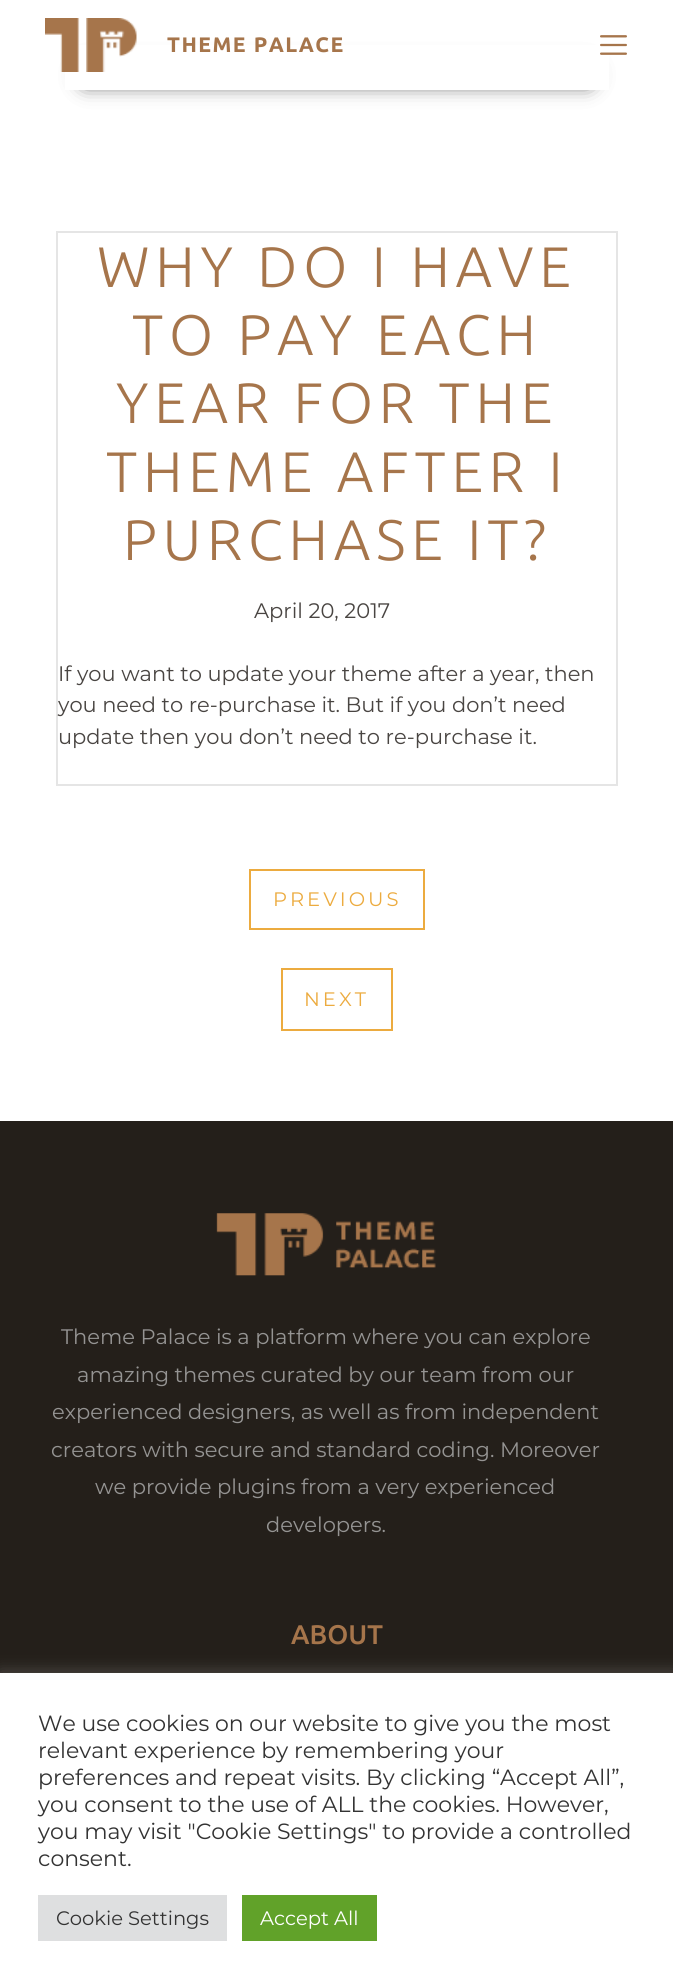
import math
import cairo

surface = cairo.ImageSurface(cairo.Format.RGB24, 673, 1986)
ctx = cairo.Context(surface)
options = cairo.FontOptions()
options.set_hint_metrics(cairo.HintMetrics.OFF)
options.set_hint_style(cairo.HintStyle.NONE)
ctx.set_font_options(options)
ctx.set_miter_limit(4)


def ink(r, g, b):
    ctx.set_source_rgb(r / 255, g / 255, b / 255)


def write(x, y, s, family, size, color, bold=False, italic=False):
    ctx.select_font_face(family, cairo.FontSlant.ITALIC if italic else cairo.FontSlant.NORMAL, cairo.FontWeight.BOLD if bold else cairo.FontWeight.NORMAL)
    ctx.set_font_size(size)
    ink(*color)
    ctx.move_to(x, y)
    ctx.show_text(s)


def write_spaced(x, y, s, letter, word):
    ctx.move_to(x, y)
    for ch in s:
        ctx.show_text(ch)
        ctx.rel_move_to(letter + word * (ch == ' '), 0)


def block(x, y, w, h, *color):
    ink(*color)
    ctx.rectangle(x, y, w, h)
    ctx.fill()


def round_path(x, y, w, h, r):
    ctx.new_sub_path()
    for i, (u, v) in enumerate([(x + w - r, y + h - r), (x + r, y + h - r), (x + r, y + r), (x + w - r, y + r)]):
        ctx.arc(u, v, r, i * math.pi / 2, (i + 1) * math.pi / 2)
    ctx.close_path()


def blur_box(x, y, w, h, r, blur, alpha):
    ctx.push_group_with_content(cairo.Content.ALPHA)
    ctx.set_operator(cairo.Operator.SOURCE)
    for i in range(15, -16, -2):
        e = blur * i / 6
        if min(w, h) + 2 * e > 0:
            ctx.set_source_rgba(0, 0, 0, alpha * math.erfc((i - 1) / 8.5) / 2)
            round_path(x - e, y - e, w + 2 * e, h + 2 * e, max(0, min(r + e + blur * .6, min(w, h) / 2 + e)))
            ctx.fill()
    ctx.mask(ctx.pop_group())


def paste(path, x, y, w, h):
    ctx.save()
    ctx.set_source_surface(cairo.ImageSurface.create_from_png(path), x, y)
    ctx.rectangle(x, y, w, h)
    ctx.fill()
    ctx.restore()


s1 = dict(family="Montserrat", size=21, color=(73, 69, 66))
s2 = dict(family="Montserrat", size=21, color=(149, 148, 147))
s3 = dict(family="Ubuntu Medium", size=27, color=(166, 117, 75))
s4 = dict(family="Montserrat", size=22, color=(51, 51, 51))
s5 = dict(family="Montserrat", size=19.5, color=(51, 51, 51))
s6 = dict(family="Montserrat", size=19.5, color=(255, 255, 255))

ink(255, 255, 255)
ctx.paint()
ink(0, 0, 0)
blur_box(84, 68, 506, 15, 7.5, 10.5, 0.8)
block(65, 45, 544, 45, 255, 255, 255)
paste("pic1.png", 45, 18, 92, 54)
ctx.select_font_face("Ubuntu", cairo.FontSlant.NORMAL, cairo.FontWeight.BOLD)
ctx.set_font_size(21)
ink(166, 117, 75)
write_spaced(167, 52, "THEME PALACE", 1.5, 0)
paste("pic2.png", 600, 35, 27, 20)
ctx.rectangle(57, 232, 560, 553)
ink(229, 229, 229)
ctx.stroke()
ctx.select_font_face("Ubuntu Light")
ctx.set_font_size(57)
ink(166, 117, 75)
write_spaced(97, 287, "WHY DO I HAVE", 5.75, 0)
write_spaced(132, 355, "TO PAY EACH", 5.75, 0)
write_spaced(116, 423, "YEAR FOR THE", 5.75, 0)
write_spaced(106, 492, "THEME AFTER I", 5.75, 0)
write_spaced(123, 560, "PURCHASE IT?", 5.75, 0)
write(254, 618, "April 20, 2017", **s1)
write(58, 681, "If you want to update your theme after a year, then", **s1)
write(58, 712, "you need to re-purchase it. But if you don’t need", **s1)
write(58, 744, "update then you don’t need to re-purchase it.", **s1)
ctx.rectangle(250, 870, 174, 59)
ink(236, 171, 63)
ctx.stroke()
ctx.set_font_size(19.5)
write_spaced(273, 906, "PREVIOUS", 3, 0)
ctx.rectangle(282, 969, 110, 61)
ctx.stroke()
write_spaced(304, 1006, "NEXT", 3, 0)
block(0, 1121, 673, 552, 36, 31, 26)
paste("pic3.png", 216, 1213, 220, 63)
write(61, 1344, "Theme Palace is a platform where you can explore", **s2)
write(77, 1382, "amazing themes curated by our team from our", **s2)
write(52, 1419, "experienced designers, as well as from independent", **s2)
write(51, 1457, "creators with secure and standard coding. Moreover", **s2)
write(95, 1494, "we provide plugins from a very experienced", **s2)
write(266, 1532, "developers.", **s2)
write(291, 1644, "ABOUT", **s3)
ink(172, 171, 171)
blur_box(0, 1671, 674, 314, 0, 7.5, 0.3)
block(0, 1673, 673, 313, 255, 255, 255)
write(38, 1731, "We use cookies on our website to give you the most", **s4)
write(38, 1758, "relevant experience by remembering your", **s4)
write(38, 1785, "preferences and repeat visits. By clicking “Accept All”,", **s4)
write(38, 1812, "you consent to the use of ALL the cookies. However,", **s4)
write(38, 1839, "you may visit \"Cookie Settings\" to provide a controlled", **s4)
write(38, 1866, "consent.", **s4)
block(38, 1895, 189, 46, 222, 223, 224)
write(56, 1925, "Cookie Settings", **s5)
block(242, 1895, 135, 46, 97, 162, 41)
write(260, 1925, "Accept All", **s6)
surface.write_to_png("screenshot.png")
